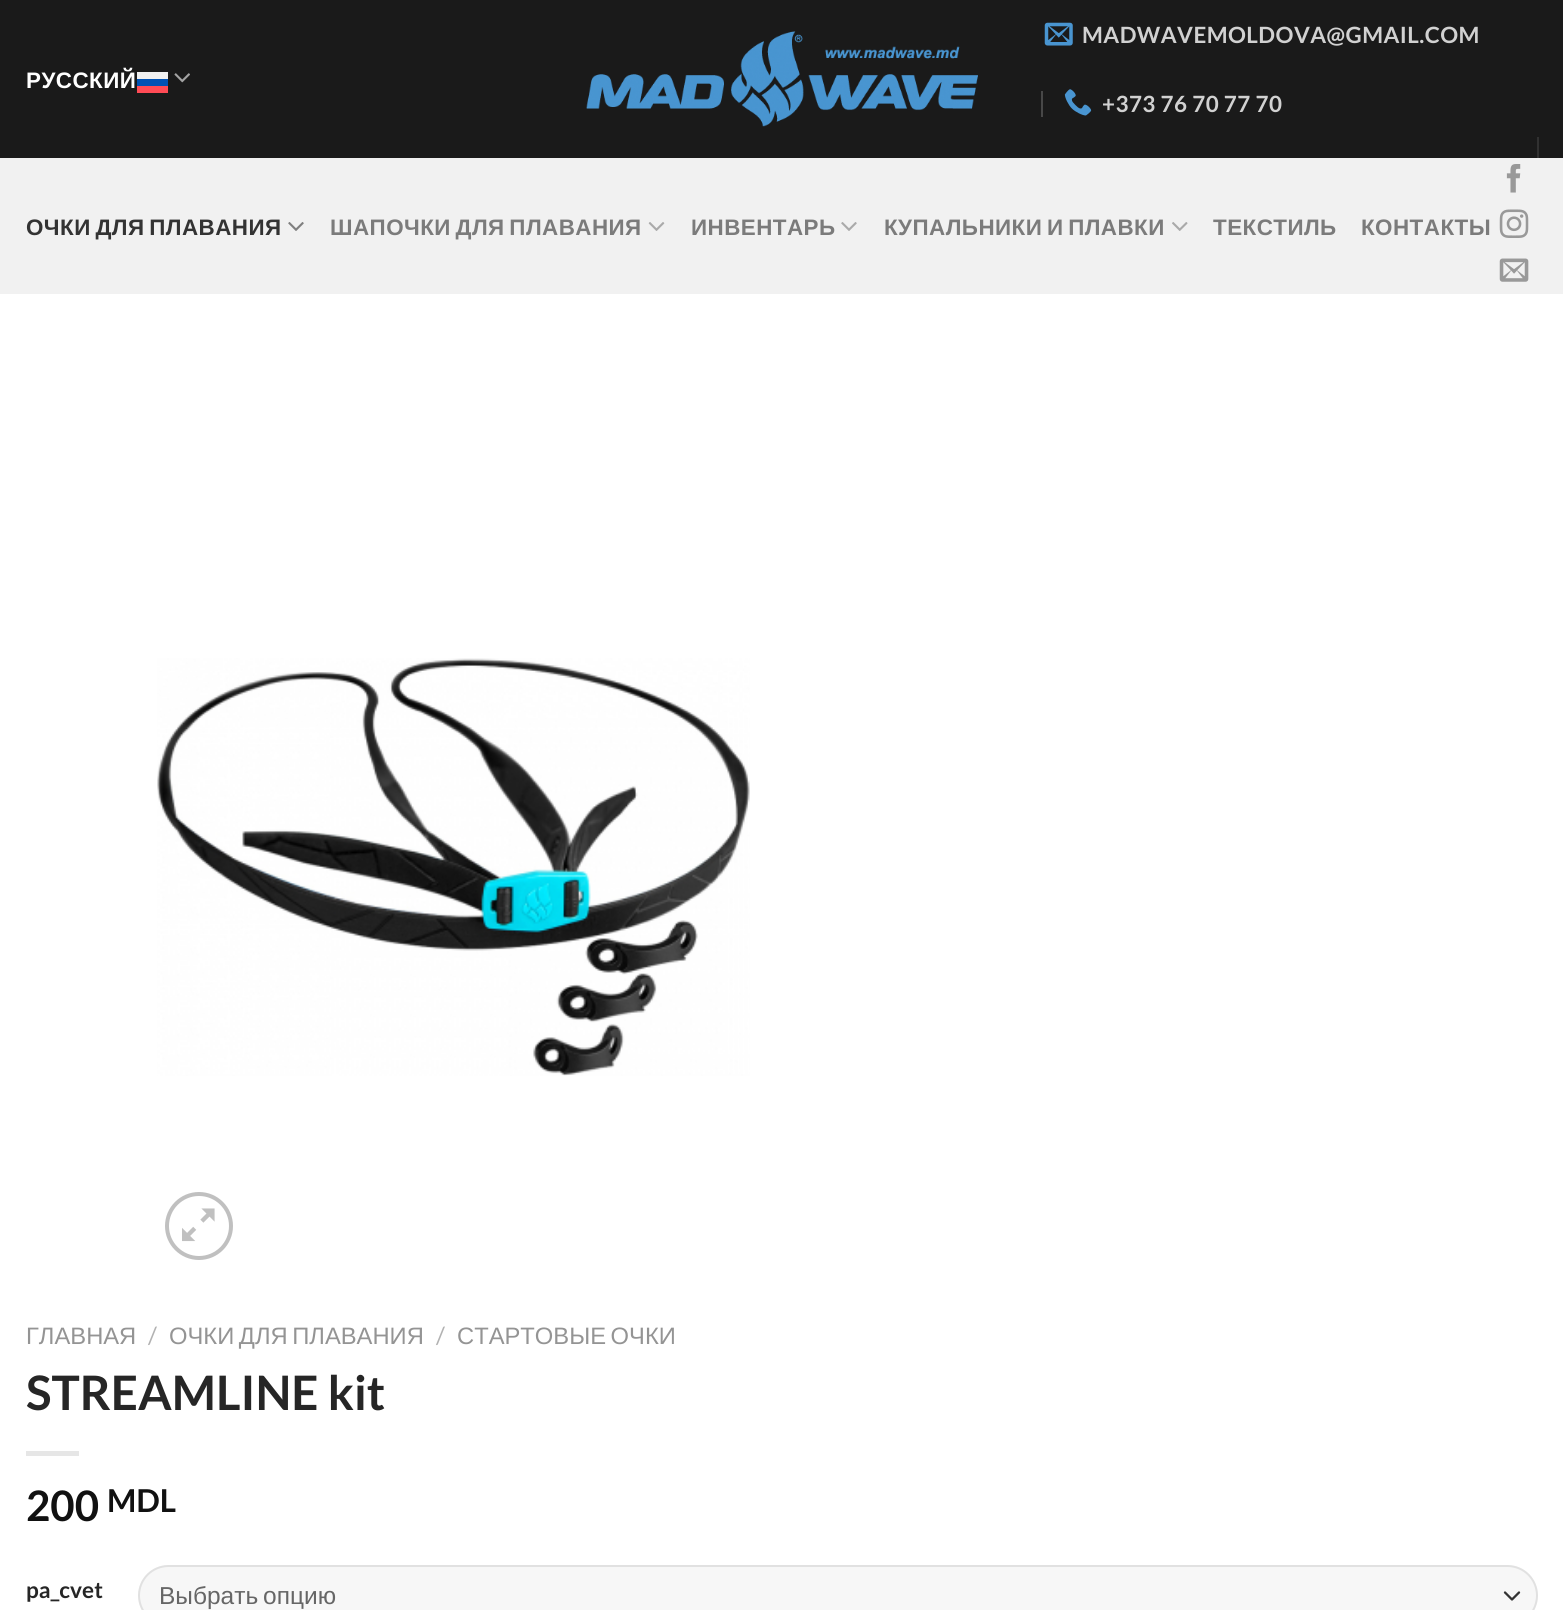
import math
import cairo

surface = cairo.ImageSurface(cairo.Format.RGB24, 1563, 1610)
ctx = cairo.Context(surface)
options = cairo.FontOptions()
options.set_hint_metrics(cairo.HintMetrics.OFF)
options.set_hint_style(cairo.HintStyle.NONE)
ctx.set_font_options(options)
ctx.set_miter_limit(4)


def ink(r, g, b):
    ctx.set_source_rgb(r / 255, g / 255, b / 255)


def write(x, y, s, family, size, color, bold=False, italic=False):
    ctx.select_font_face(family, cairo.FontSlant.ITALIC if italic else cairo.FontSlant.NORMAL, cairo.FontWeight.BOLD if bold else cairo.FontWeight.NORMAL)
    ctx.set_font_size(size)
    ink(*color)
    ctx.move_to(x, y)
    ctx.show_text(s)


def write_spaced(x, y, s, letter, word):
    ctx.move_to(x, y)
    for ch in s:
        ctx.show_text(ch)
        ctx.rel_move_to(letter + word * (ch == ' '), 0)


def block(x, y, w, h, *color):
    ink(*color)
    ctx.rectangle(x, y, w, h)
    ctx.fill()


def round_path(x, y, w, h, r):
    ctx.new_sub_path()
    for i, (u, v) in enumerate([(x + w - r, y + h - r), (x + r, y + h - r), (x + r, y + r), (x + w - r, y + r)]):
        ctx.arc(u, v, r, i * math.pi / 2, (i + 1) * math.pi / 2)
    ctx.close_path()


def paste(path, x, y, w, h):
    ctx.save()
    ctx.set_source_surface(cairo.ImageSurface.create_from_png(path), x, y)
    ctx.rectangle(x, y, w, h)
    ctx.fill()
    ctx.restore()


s1 = dict(family="Liberation Sans", size=23.75, color=(148, 148, 148))
s2 = dict(family="Lato", size=23.75, color=(178, 178, 178))
s3 = dict(family="Lato", size=47.5, color=(38, 38, 38), bold=True)
s4 = dict(family="Lato", size=42, color=(17, 17, 17), bold=True)
s5 = dict(family="Lato", size=31.5, color=(17, 17, 17), bold=True)
s6 = dict(family="Lato", size=22.5, color=(38, 38, 38), bold=True)

ink(255, 255, 255)
ctx.paint()
block(0, 0, 1563, 158, 26, 26, 26)
block(1537, 137, 2, 21, 49, 49, 49)
ctx.select_font_face("Liberation Sans", cairo.FontSlant.NORMAL, cairo.FontWeight.BOLD)
ctx.set_font_size(22.4)
ink(255, 255, 255)
write_spaced(26, 88, "РУССКИЙ", 0.45, 0)
block(137, 79, 31, 7, 0, 82, 180)
block(137, 86, 31, 7, 255, 75, 85)
block(137, 72, 31, 7, 240, 240, 240)
paste("pic1.png", 174, 73, 16, 10)
paste("pic2.png", 586, 31, 392, 96)
paste("pic3.png", 1044, 22, 29, 24)
ctx.select_font_face("Lato", cairo.FontSlant.NORMAL, cairo.FontWeight.BOLD)
ink(209, 209, 209)
write_spaced(1082, 43, "MADWAVEMOLDOVA@GMAIL.COM", 0.45, 0)
block(1041, 91, 2, 26, 72, 72, 72)
paste("pic4.png", 1064, 89, 28, 27)
ink(209, 209, 209)
write_spaced(1102, 112, "+373 76 70 77 70", 0.45, 0)
block(0, 158, 1563, 136, 241, 241, 241)
ctx.select_font_face("Liberation Sans", cairo.FontSlant.NORMAL, cairo.FontWeight.BOLD)
ink(51, 51, 51)
write_spaced(26, 235, "ОЧКИ ДЛЯ ПЛАВАНИЯ", 0.45, -2)
paste("pic5.png", 288, 222, 16, 9)
ink(123, 123, 123)
write_spaced(330, 235, "ШАПОЧКИ ДЛЯ ПЛАВАНИЯ", 0.45, -2)
paste("pic6.png", 648, 222, 17, 9)
write_spaced(691, 235, "ИНВЕНТАРЬ", 0.45, 0)
paste("pic7.png", 841, 222, 16, 9)
write_spaced(884, 235, "КУПАЛЬНИКИ И ПЛАВКИ", 0.45, -2)
paste("pic8.png", 1172, 222, 16, 9)
write_spaced(1213, 235, "ТЕКСТИЛЬ", 0.45, 0)
write_spaced(1361, 235, "КОНТАКТЫ", 0.45, 0)
paste("pic9.png", 1506, 164, 15, 29)
paste("pic10.png", 1499, 209, 30, 29)
paste("pic11.png", 1499, 258, 30, 24)
paste("pic12.png", 157, 658, 593, 418)
ctx.arc(199, 1226, 32, 0, 2 * math.pi)
ink(192, 192, 192)
ctx.set_line_width(4)
ctx.stroke()
paste("pic13.png", 182, 1208, 33, 34)
write(26, 1344, "ГЛАВНАЯ", **s1)
write(148, 1344, "/", **s2)
ctx.select_font_face("Liberation Sans")
ink(148, 148, 148)
write_spaced(169, 1344, "ОЧКИ ДЛЯ ПЛАВАНИЯ", 0, -2)
write(436, 1344, "/", **s2)
ctx.select_font_face("Liberation Sans")
ink(148, 148, 148)
write_spaced(457, 1344, "СТАРТОВЫЕ ОЧКИ", 0, -2)
write(26, 1410, "STREAMLINE kit", **s3)
block(26, 1451, 53, 5, 230, 230, 230)
write(26, 1521, "200", **s4)
write(107, 1512, "MDL", **s5)
write(26, 1598, "pa_cvet", **s6)
ink(247, 247, 247)
round_path(138, 1565, 1400, 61, 30.5)
ctx.fill()
ctx.new_path()
ctx.move_to(1505, 1592.5)
ctx.line_to(1512, 1599.5)
ctx.line_to(1519, 1592.5)
ink(51, 51, 51)
ctx.set_line_width(2.3)
ctx.set_line_cap(cairo.LineCap.ROUND)
ctx.set_line_join(cairo.LineJoin.ROUND)
ctx.stroke()
round_path(139, 1566, 1398, 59, 29.5)
ctx.set_source_rgba(0, 0, 0, 0.09)
ctx.set_line_width(2)
ctx.set_line_cap(cairo.LineCap.BUTT)
ctx.set_line_join(cairo.LineJoin.MITER)
ctx.stroke()
ctx.select_font_face("Liberation Sans")
ctx.set_font_size(24.5)
ink(102, 102, 102)
write_spaced(159, 1604, "Выбрать опцию", 0, -2)
surface.write_to_png("screenshot.png")
